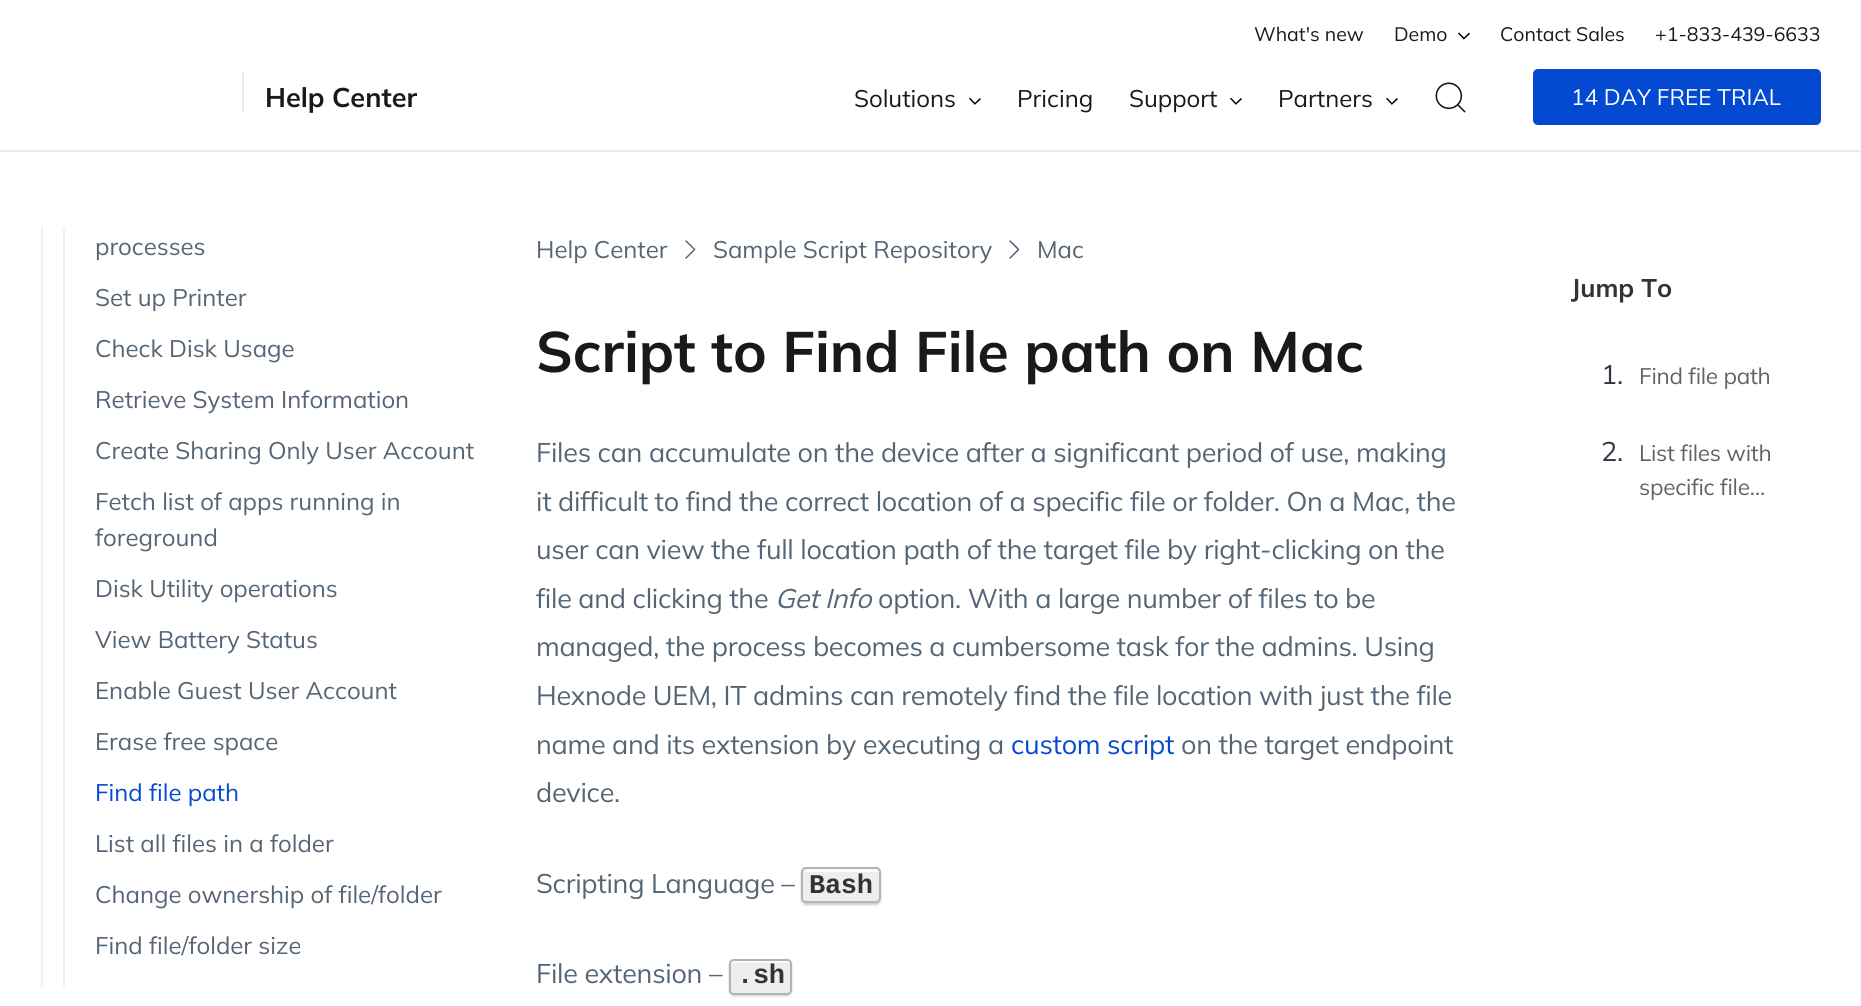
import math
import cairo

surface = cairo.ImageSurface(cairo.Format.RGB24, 1861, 1006)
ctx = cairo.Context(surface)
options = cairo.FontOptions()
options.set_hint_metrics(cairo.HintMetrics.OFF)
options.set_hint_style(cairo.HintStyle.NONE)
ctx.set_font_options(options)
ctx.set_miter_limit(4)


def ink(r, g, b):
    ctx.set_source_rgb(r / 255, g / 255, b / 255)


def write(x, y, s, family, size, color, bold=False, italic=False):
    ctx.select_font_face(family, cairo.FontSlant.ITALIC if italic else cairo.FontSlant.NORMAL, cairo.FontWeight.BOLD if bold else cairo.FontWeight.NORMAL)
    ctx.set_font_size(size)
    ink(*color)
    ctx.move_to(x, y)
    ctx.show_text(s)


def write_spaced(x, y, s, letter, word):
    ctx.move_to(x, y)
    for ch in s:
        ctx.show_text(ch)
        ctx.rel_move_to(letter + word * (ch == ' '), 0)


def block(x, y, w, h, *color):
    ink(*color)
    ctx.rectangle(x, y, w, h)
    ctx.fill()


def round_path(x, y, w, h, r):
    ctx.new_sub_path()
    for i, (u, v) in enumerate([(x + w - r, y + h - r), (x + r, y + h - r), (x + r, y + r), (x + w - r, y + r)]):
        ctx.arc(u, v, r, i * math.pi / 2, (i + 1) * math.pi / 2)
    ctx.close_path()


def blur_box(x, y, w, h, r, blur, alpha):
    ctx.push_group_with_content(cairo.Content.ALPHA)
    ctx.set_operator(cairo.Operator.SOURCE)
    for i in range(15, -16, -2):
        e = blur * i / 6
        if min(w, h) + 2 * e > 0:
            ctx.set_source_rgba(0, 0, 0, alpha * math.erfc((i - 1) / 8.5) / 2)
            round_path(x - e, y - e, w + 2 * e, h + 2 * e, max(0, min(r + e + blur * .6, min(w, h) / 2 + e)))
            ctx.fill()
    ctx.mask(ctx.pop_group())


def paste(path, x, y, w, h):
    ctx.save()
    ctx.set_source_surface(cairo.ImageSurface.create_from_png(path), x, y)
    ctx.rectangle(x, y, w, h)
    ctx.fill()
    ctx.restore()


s1 = dict(family="Mulish", size=19.5, color=(25, 25, 25))
s2 = dict(family="Mulish", size=27, color=(25, 25, 25), bold=True)
s3 = dict(family="Mulish", size=24, color=(25, 25, 25))
s4 = dict(family="Mulish", size=22.5, color=(255, 255, 255))
s5 = dict(family="Mulish", size=24, color=(85, 101, 117))
s6 = dict(family="Mulish", size=24, color=(5, 73, 209))
s7 = dict(family="Mulish", size=25.5, color=(51, 51, 51), bold=True)
s8 = dict(family="Mulish", size=57, color=(25, 25, 25), bold=True)

ink(255, 255, 255)
ctx.paint()
block(0, 150, 1861, 2, 234, 234, 234)
write(1254, 41, "What's new", **s1)
write(1394, 41, "Demo", **s1)
paste("pic1.png", 1458, 32, 12, 8)
write(1500, 41, "Contact Sales", **s1)
write(1655, 41, "+1-833-439-6633", **s1)
block(242, 72, 2, 41, 234, 234, 234)
write(265, 107, "Help Center", **s2)
write(854, 107, "Solutions", **s3)
paste("pic2.png", 969, 98, 12, 7)
write(1017, 107, "Pricing", **s3)
write(1129, 107, "Support", **s3)
paste("pic2.png", 1230, 98, 12, 7)
write(1278, 107, "Partners", **s3)
paste("pic2.png", 1386, 98, 12, 7)
paste("pic3.png", 1435, 82, 31, 31)
ink(4, 73, 209)
round_path(1533, 69, 288, 56, 5)
ctx.fill()
write(1571, 105, "14 DAY FREE TRIAL", **s4)
block(41, 228, 2, 759, 240, 240, 240)
block(63, 228, 2, 759, 240, 240, 240)
write(95, 255, "processes", **s5)
write(95, 306, "Set up Printer", **s5)
write(95, 357, "Check Disk Usage", **s5)
write(95, 408, "Retrieve System Information", **s5)
write(95, 459, "Create Sharing Only User Account", **s5)
write(95, 510, "Fetch list of apps running in", **s5)
write(95, 546, "foreground", **s5)
write(95, 597, "Disk Utility operations", **s5)
write(95, 648, "View Battery Status", **s5)
write(95, 699, "Enable Guest User Account", **s5)
write(95, 750, "Erase free space", **s5)
write(95, 801, "Find file path", **s6)
write(95, 852, "List all files in a folder", **s5)
write(95, 903, "Change ownership of file/folder", **s5)
write(95, 954, "Find file/folder size", **s5)
write(536, 258, "Help Center", **s5)
paste("pic4.png", 685, 240, 11, 19)
write(713, 258, "Sample Script Repository", **s5)
paste("pic5.png", 1009, 240, 11, 19)
write(1037, 258, "Mac", **s5)
write(1571, 297, "Jump To", **s7)
ctx.select_font_face("Mulish")
ctx.set_font_size(27)
ink(50, 54, 72)
write_spaced(1601, 384, "1.", -0.27, 0)
ctx.set_font_size(22.5)
ink(95, 99, 104)
write_spaced(1639, 384, "Find file path", -0.25, 0)
ctx.set_font_size(27)
ink(50, 54, 72)
write_spaced(1601, 461, "2.", -0.27, 0)
ctx.set_font_size(22.5)
ink(95, 99, 104)
write_spaced(1639, 461, "List files with", -0.25, 0)
write_spaced(1639, 495, "specific file…", -0.25, 0)
ctx.set_font_size(27)
ink(85, 101, 117)
write_spaced(536, 462, "Files can accumulate on the device after a significant period of use, making", -0.27, 0)
write_spaced(536, 511, "it difficult to find the correct location of a specific file or folder. On a Mac, the", -0.27, 0)
write_spaced(536, 559, "user can view the full location path of the target file by right-clicking on the", -0.27, 0)
write_spaced(536, 608, "file and clicking the", -0.27, 0)
ctx.select_font_face("Mulish", cairo.FontSlant.ITALIC)
write_spaced(775, 608, "Get Info", -0.27, 0)
ctx.select_font_face("Mulish")
write_spaced(878, 608, "option. With a large number of files to be", -0.27, 0)
write_spaced(536, 656, "managed, the process becomes a cumbersome task for the admins. Using", -0.27, 0)
write_spaced(536, 705, "Hexnode UEM, IT admins can remotely find the file location with just the file", -0.27, 0)
write_spaced(536, 754, "name and its extension by executing a", -0.27, 0)
ink(5, 73, 209)
write_spaced(1011, 754, "custom script", -0.27, 0)
ink(85, 101, 117)
write_spaced(1181, 754, "on the target endpoint", -0.27, 0)
write_spaced(536, 802, "device.", -0.27, 0)
write_spaced(536, 893, "Scripting Language –", -0.27, 0)
ink(0, 0, 0)
blur_box(801, 869, 80, 36, 5, 1, 0.2)
ink(238, 238, 238)
round_path(801, 867, 80, 36, 5)
ctx.fill()
ink(250, 250, 250)
ctx.new_path()
ctx.move_to(806, 872)
ctx.line_to(876, 872)
ctx.curve_to(878, 872, 879, 873, 879, 874)
ctx.curve_to(879, 866, 872, 869, 864, 869)
ctx.line_to(818, 869)
ctx.curve_to(815, 869, 803, 866, 803, 873)
ctx.close_path()
ctx.fill()
round_path(802, 868, 78, 34, 4)
ink(180, 180, 180)
ctx.stroke()
ctx.select_font_face("Liberation Mono", cairo.FontSlant.NORMAL, cairo.FontWeight.BOLD)
ink(51, 51, 51)
write_spaced(809, 893, "Bash", -0.27, 0)
ctx.select_font_face("Mulish")
ink(85, 101, 117)
write_spaced(536, 983, "File extension –", -0.27, 0)
ink(0, 0, 0)
blur_box(729, 960, 63, 36, 5, 1, 0.2)
ink(238, 238, 238)
round_path(729, 959, 63, 36, 5)
ctx.fill()
ink(250, 250, 250)
ctx.new_path()
ctx.move_to(734, 963)
ctx.line_to(788, 963)
ctx.curve_to(789, 963, 790, 964, 790, 966)
ctx.line_to(790, 992)
ctx.curve_to(792, 990, 791, 979, 791, 976)
ctx.curve_to(791, 960, 795, 960, 779, 960)
ctx.line_to(733, 960)
ctx.curve_to(731, 961, 731, 962, 731, 964)
ctx.close_path()
ctx.fill()
round_path(730, 960, 61, 34, 4)
ink(180, 180, 180)
ctx.stroke()
ctx.select_font_face("Liberation Mono", cairo.FontSlant.NORMAL, cairo.FontWeight.BOLD)
ink(51, 51, 51)
write_spaced(737, 983, ".sh", -0.27, 0)
write(536, 372, "Script to Find File path on Mac", **s8)
surface.write_to_png("screenshot.png")
